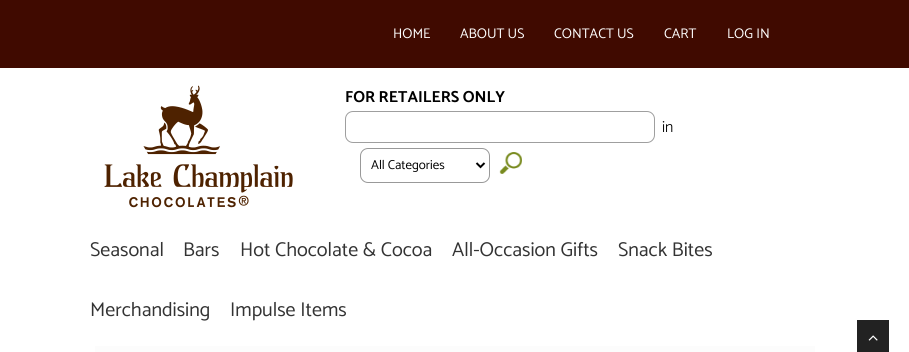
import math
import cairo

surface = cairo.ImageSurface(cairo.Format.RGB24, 909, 352)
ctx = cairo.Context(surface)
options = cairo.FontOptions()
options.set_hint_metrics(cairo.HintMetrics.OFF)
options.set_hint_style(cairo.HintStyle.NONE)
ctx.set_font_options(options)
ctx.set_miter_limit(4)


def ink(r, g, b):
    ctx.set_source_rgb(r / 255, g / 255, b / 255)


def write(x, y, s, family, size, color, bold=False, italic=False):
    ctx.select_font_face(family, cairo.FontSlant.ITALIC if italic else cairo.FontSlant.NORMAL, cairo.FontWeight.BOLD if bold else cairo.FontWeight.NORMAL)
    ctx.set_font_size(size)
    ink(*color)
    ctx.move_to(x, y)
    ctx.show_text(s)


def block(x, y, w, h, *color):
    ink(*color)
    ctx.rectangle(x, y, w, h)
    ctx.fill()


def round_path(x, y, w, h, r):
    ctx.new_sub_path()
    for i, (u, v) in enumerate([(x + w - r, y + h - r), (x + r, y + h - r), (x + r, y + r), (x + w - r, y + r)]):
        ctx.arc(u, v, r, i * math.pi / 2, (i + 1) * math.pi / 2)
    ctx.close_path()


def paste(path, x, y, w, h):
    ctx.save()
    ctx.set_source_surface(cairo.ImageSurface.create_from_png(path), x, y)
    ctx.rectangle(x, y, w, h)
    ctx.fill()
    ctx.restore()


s1 = dict(family="Catamaran", size=14, color=(255, 255, 255))
s2 = dict(family="Catamaran", size=16, color=(0, 0, 0), bold=True)
s3 = dict(family="Catamaran Light", size=16, color=(0, 0, 0))
s4 = dict(family="Catamaran", size=13, color=(0, 0, 0))
s5 = dict(family="Catamaran", size=20, color=(51, 51, 51))

ink(255, 255, 255)
ctx.paint()
block(0, 0, 909, 68, 64, 10, 0)
write(393, 38, "HOME", **s1)
write(460, 38, "ABOUT US", **s1)
write(554, 38, "CONTACT US", **s1)
write(664, 38, "CART", **s1)
write(727, 38, "LOG IN", **s1)
paste("pic1.png", 104, 85, 189, 123)
write(345, 102, "FOR RETAILERS ONLY", **s2)
round_path(345.5, 111.5, 309, 31, 7.5)
ink(159, 159, 159)
ctx.set_line_width(1)
ctx.stroke()
write(662, 132, "in", **s3)
round_path(360.5, 148.5, 129, 34, 7.5)
ink(153, 153, 153)
ctx.stroke()
ctx.new_path()
ctx.move_to(476.5, 163)
ctx.line_to(480.5, 167)
ctx.line_to(484.5, 163)
ink(0, 0, 0)
ctx.set_line_width(2)
ctx.stroke()
write(371, 169, "All Categories", **s4)
paste("pic2.png", 499, 152, 23, 22)
write(90, 256, "Seasonal", **s5)
write(183, 256, "Bars", **s5)
write(240, 256, "Hot Chocolate & Cocoa", **s5)
write(452, 256, "All-Occasion Gifts", **s5)
write(618, 256, "Snack Bites", **s5)
write(90, 316, "Merchandising", **s5)
write(230, 316, "Impulse Items", **s5)
block(95, 346, 720, 6, 252, 252, 252)
block(857, 320, 32, 32, 34, 34, 34)
paste("pic3.png", 868, 335, 10, 6)
surface.write_to_png("screenshot.png")
